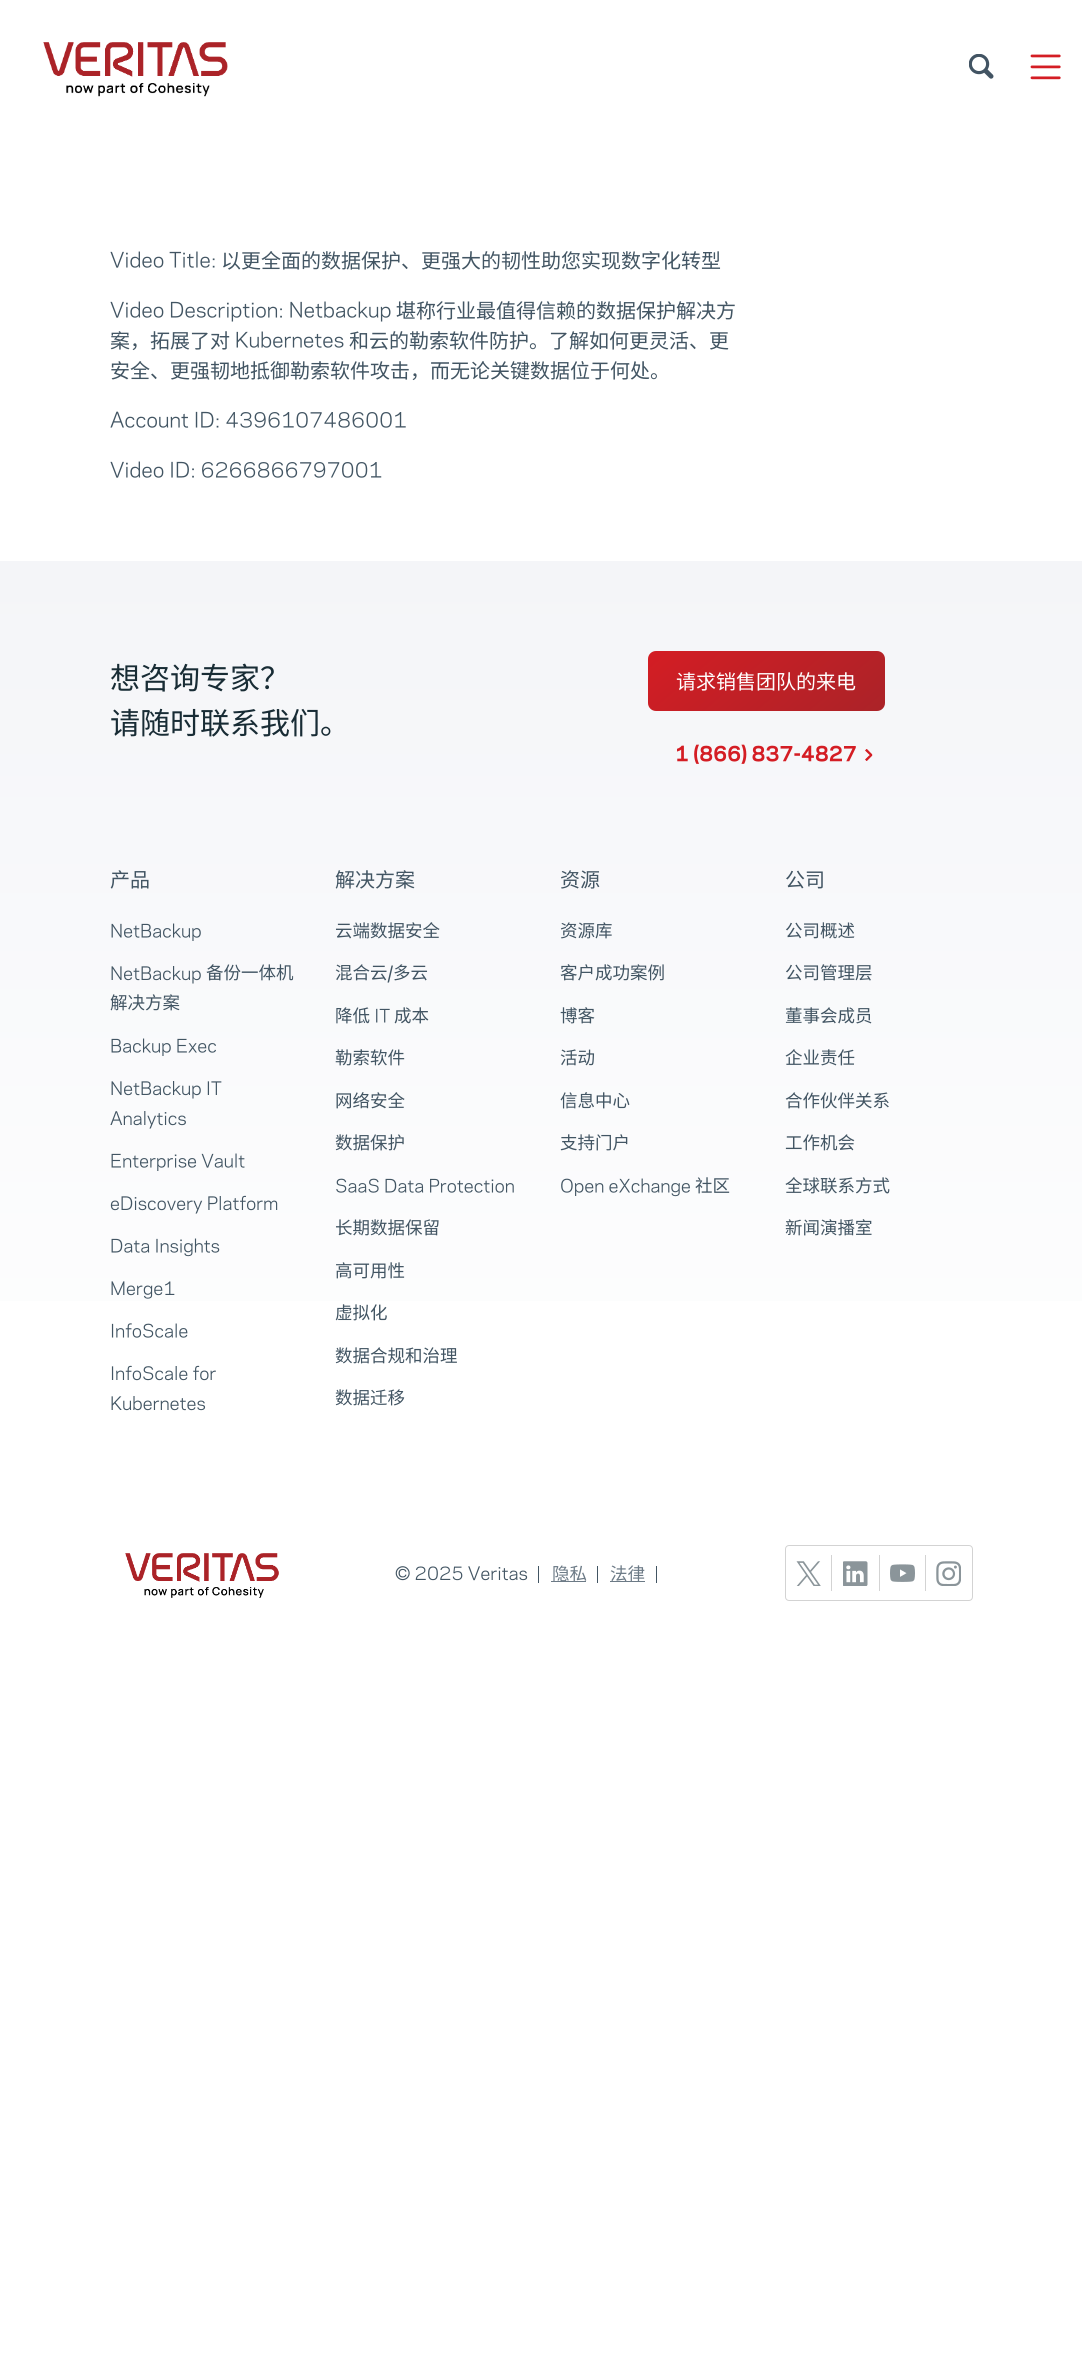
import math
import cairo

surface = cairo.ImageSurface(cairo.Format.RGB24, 1082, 2358)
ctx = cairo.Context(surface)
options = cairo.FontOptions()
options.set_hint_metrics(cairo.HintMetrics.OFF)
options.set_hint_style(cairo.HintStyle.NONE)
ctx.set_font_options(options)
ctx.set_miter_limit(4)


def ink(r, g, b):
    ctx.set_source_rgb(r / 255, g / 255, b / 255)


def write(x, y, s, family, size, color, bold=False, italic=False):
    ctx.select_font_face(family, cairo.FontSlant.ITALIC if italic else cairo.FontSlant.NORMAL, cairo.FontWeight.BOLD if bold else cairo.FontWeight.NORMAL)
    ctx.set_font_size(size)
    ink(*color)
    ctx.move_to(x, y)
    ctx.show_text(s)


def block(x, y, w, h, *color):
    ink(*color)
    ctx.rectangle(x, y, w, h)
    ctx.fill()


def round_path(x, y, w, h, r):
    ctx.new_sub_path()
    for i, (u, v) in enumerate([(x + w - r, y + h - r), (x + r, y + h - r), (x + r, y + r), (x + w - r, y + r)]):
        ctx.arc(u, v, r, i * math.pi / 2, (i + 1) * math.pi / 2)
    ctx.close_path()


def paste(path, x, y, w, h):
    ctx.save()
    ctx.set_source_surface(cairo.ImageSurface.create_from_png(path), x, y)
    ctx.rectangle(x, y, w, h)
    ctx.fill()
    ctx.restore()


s1 = dict(family="Noto Sans CJK SC", size=20, color=(66, 85, 99))
s2 = dict(family="Noto Sans CJK SC", size=30, color=(24, 44, 53))
s3 = dict(family="Noto Sans CJK SC", size=20, color=(255, 255, 255))
s4 = dict(family="Noto Sans CJK SC", size=17.5, color=(66, 85, 99))
s5 = dict(family="Noto Sans CJK SC", size=17.5, color=(108, 122, 134))

ink(255, 255, 255)
ctx.paint()
paste("pic1.png", 43, 42, 185, 55)
paste("pic2.png", 969, 54, 25, 25)
paste("pic3.png", 1030, 54, 31, 26)
paste("pic4.png", 110, 251, 105, 17)
write(221, 268, "以更全面的数据保护、更强大的韧性助您实现数字化转型", **s1)
paste("pic5.png", 110, 301, 281, 21)
write(396, 318, "堪称行业最值得信赖的数据保护解决方", **s1)
write(110, 348, "案，拓展了对", **s1)
paste("pic6.png", 236, 331, 108, 17)
write(349, 348, "和云的勒索软件防护。了解如何更灵活、更", **s1)
write(110, 378, "安全、更强韧地抵御勒索软件攻击，而无论关键数据位于何处。", **s1)
paste("pic7.png", 110, 411, 296, 17)
paste("pic8.png", 110, 461, 272, 17)
gradient = cairo.LinearGradient(541, 561, 541, 1519)
gradient.add_color_stop_rgba(0, 0.957, 0.961, 0.973, 1)
gradient.add_color_stop_rgba(1, 1, 1, 1, 1)
ctx.set_source(gradient)
ctx.rectangle(0, 561, 1082, 740)
ctx.fill()
write(110, 689, "想咨询专家？", **s2)
write(110, 734, "请随时联系我们。", **s2)
gradient = cairo.LinearGradient(702, 605, 830, 757)
gradient.add_color_stop_rgba(0, 0.831, 0.114, 0.141, 1)
gradient.add_color_stop_rgba(1, 0.671, 0.137, 0.157, 1)
ctx.set_source(gradient)
round_path(648, 651, 237, 60, 8)
ctx.fill()
write(676, 689, "请求销售团队的来电", **s3)
paste("pic9.png", 677, 744, 179, 20)
paste("pic10.png", 865, 749, 8, 12)
write(110, 887, "产品", **s1)
paste("pic11.png", 111, 923, 90, 18)
paste("pic12.png", 111, 966, 90, 18)
write(206, 979, "备份一体机", **s4)
write(110, 1009, "解决方案", **s4)
paste("pic13.png", 111, 1038, 105, 18)
paste("pic14.png", 111, 1081, 111, 18)
paste("pic15.png", 110, 1111, 76, 18)
paste("pic16.png", 111, 1153, 134, 18)
paste("pic17.png", 110, 1195, 168, 19)
paste("pic18.png", 111, 1238, 109, 19)
paste("pic19.png", 111, 1281, 64, 18)
paste("pic20.png", 111, 1323, 77, 15)
paste("pic21.png", 111, 1365, 105, 16)
paste("pic22.png", 111, 1396, 95, 15)
write(335, 887, "解决方案", **s1)
write(335, 937, "云端数据安全", **s4)
write(335, 979, "混合云", **s4)
ctx.new_path()
ctx.move_to(389, 982.5)
ctx.line_to(387.5, 982.5)
ctx.line_to(391.5, 965.5)
ctx.line_to(393, 965.5)
ctx.close_path()
ctx.fill()
write(393, 979, "多云", **s4)
write(335, 1022, "降低", **s4)
paste("pic23.png", 376, 1008, 14, 15)
write(394, 1022, "成本", **s4)
write(335, 1064, "勒索软件", **s4)
write(335, 1107, "网络安全", **s4)
write(335, 1149, "数据保护", **s4)
paste("pic24.png", 336, 1178, 178, 15)
write(335, 1234, "长期数据保留", **s4)
write(335, 1277, "高可用性", **s4)
write(335, 1319, "虚拟化", **s4)
write(335, 1362, "数据合规和治理", **s4)
write(335, 1404, "数据迁移", **s4)
write(560, 887, "资源", **s1)
write(560, 937, "资源库", **s4)
write(560, 979, "客户成功案例", **s4)
write(560, 1022, "博客", **s4)
write(560, 1064, "活动", **s4)
write(560, 1107, "信息中心", **s4)
write(560, 1149, "支持门户", **s4)
paste("pic25.png", 561, 1178, 129, 19)
write(695, 1192, "社区", **s4)
write(785, 887, "公司", **s1)
write(785, 937, "公司概述", **s4)
write(785, 979, "公司管理层", **s4)
write(785, 1022, "董事会成员", **s4)
write(785, 1064, "企业责任", **s4)
write(785, 1107, "合作伙伴关系", **s4)
write(785, 1149, "工作机会", **s4)
write(785, 1192, "全球联系方式", **s4)
write(785, 1234, "新闻演播室", **s4)
paste("pic26.png", 125, 1553, 154, 45)
paste("pic27.png", 395, 1566, 133, 15)
block(538, 1566, 1, 17, 66, 85, 99)
block(551, 1581, 35, 1, 108, 122, 134)
write(552, 1580, "隐私", **s5)
block(597, 1566, 1, 17, 66, 85, 99)
block(610, 1581, 35, 1, 108, 122, 134)
write(610, 1580, "法律", **s5)
block(656, 1566, 1, 17, 66, 85, 99)
round_path(785.5, 1545.5, 187, 55, 3.5)
ink(211, 211, 211)
ctx.set_line_width(1)
ctx.stroke()
block(831, 1555, 1, 36, 211, 211, 211)
paste("pic28.png", 796, 1561, 25, 25)
block(879, 1555, 1, 36, 211, 211, 211)
paste("pic29.png", 843, 1561, 25, 25)
block(925, 1555, 1, 36, 211, 211, 211)
paste("pic30.png", 890, 1564, 25, 18)
paste("pic31.png", 936, 1561, 25, 25)
surface.write_to_png("screenshot.png")
